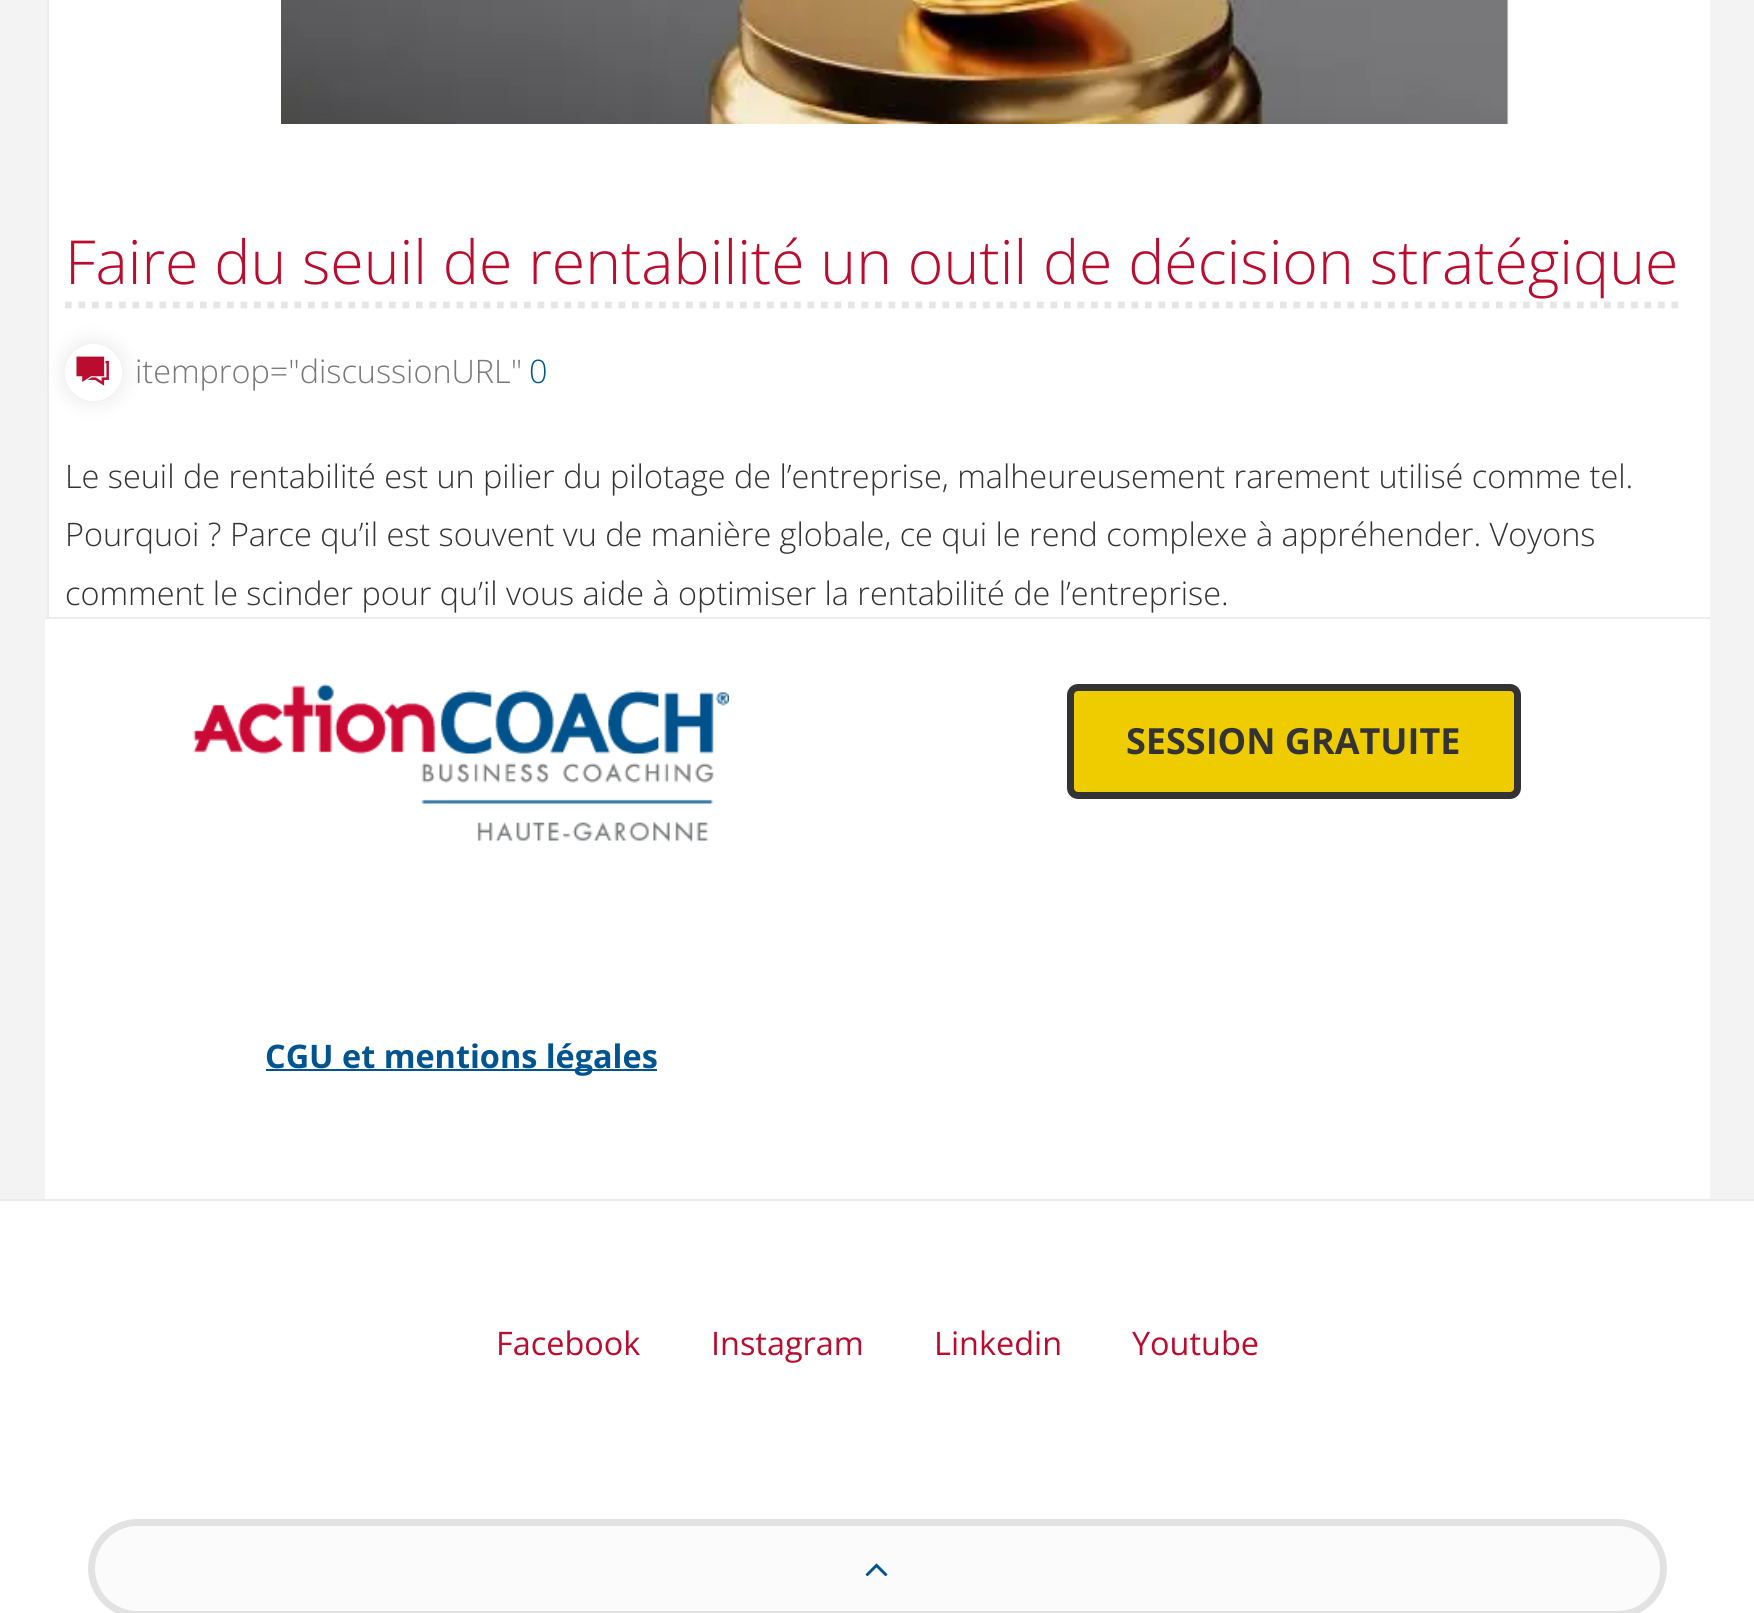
import math
import cairo

surface = cairo.ImageSurface(cairo.Format.RGB24, 1754, 1613)
ctx = cairo.Context(surface)
options = cairo.FontOptions()
options.set_hint_metrics(cairo.HintMetrics.OFF)
options.set_hint_style(cairo.HintStyle.NONE)
ctx.set_font_options(options)
ctx.set_miter_limit(4)


def ink(r, g, b):
    ctx.set_source_rgb(r / 255, g / 255, b / 255)


def write(x, y, s, family, size, color, bold=False, italic=False):
    ctx.select_font_face(family, cairo.FontSlant.ITALIC if italic else cairo.FontSlant.NORMAL, cairo.FontWeight.BOLD if bold else cairo.FontWeight.NORMAL)
    ctx.set_font_size(size)
    ink(*color)
    ctx.move_to(x, y)
    ctx.show_text(s)


def block(x, y, w, h, *color):
    ink(*color)
    ctx.rectangle(x, y, w, h)
    ctx.fill()


def round_path(x, y, w, h, r):
    ctx.new_sub_path()
    for i, (u, v) in enumerate([(x + w - r, y + h - r), (x + r, y + h - r), (x + r, y + r), (x + w - r, y + r)]):
        ctx.arc(u, v, r, i * math.pi / 2, (i + 1) * math.pi / 2)
    ctx.close_path()


def blur_box(x, y, w, h, r, blur, alpha):
    ctx.push_group_with_content(cairo.Content.ALPHA)
    ctx.set_operator(cairo.Operator.SOURCE)
    for i in range(15, -16, -2):
        e = blur * i / 6
        if min(w, h) + 2 * e > 0:
            ctx.set_source_rgba(0, 0, 0, alpha * math.erfc((i - 1) / 8.5) / 2)
            round_path(x - e, y - e, w + 2 * e, h + 2 * e, max(0, min(r + e + blur * .6, min(w, h) / 2 + e)))
            ctx.fill()
    ctx.mask(ctx.pop_group())


def paste(path, x, y, w, h):
    ctx.save()
    ctx.set_source_surface(cairo.ImageSurface.create_from_png(path), x, y)
    ctx.rectangle(x, y, w, h)
    ctx.fill()
    ctx.restore()


s1 = dict(family="Open Sans Light", size=60.75, color=(186, 12, 47))
s2 = dict(family="Open Sans Light", size=32.4, color=(120, 120, 120))
s3 = dict(family="Open Sans Light", size=32.4, color=(0, 84, 143))
s4 = dict(family="Open Sans Light", size=32.4, color=(51, 51, 51))
s5 = dict(family="Open Sans", size=36, color=(51, 51, 51), bold=True)
s6 = dict(family="Open Sans", size=32.4, color=(0, 84, 143), bold=True)
s7 = dict(family="Open Sans", size=32.4, color=(186, 12, 47))

ink(243, 243, 243)
ctx.paint()
block(49, 0, 1661, 617, 255, 255, 255)
block(45, 619, 1665, 580, 255, 255, 255)
block(45, 617, 1665, 2, 237, 237, 237)
ctx.save()
ctx.rectangle(45, 0, 1665, 617)
ctx.clip()
ctx.rectangle(48, -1, 1695, 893)
ctx.stroke()
ctx.restore()
paste("pic1.png", 281, 0, 1228, 124)
write(65, 284, "Faire du seuil de rentabilité un outil de décision stratégique", **s1)
ctx.new_path()
ctx.move_to(65, 305)
ctx.line_to(1678.5, 305)
ink(230, 230, 230)
ctx.set_line_width(6.8)
ctx.set_dash([6.75, 6.75])
ctx.stroke()
ctx.save()
ctx.set_fill_rule(cairo.FillRule.EVEN_ODD)
ctx.new_path()
ctx.move_to(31, 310)
ctx.line_to(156, 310)
ctx.line_to(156, 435)
ctx.line_to(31, 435)
ctx.close_path()
ctx.move_to(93.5, 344)
ctx.curve_to(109, 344, 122, 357, 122, 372.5)
ctx.curve_to(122, 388, 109, 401, 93.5, 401)
ctx.curve_to(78, 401, 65, 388, 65, 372.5)
ctx.curve_to(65, 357, 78, 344, 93.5, 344)
ctx.close_path()
ctx.clip()
ink(0, 0, 0)
blur_box(65, 344, 57, 57, 28.5, 11, 0.1)
ctx.restore()
paste("pic2.png", 76, 356, 33, 30)
write(135, 383, "itemprop=\"discussionURL\"", **s2)
write(529, 383, "0", **s3)
write(65, 488, "Le seuil de rentabilité est un pilier du pilotage de l’entreprise, malheureusement rarement utilisé comme tel.", **s4)
write(65, 546, "Pourquoi ? Parce qu’il est souvent vu de manière globale, ce qui le rend complexe à appréhender. Voyons", **s4)
write(65, 605, "comment le scinder pour qu’il vous aide à optimiser la rentabilité de l’entreprise.", **s4)
paste("pic3.png", 193, 684, 536, 159)
ink(238, 204, 0)
round_path(1070.5, 687.5, 447, 108, 7.5)
ctx.fill_preserve()
ink(51, 51, 51)
ctx.set_line_width(7)
ctx.set_dash([])
ctx.stroke()
write(1126, 754, "SESSION GRATUITE", **s5)
block(266, 1069, 391, 2, 0, 84, 143)
write(265, 1068, "CGU et mentions légales", **s6)
block(0, 1201, 1754, 412, 255, 255, 255)
block(0, 1199, 1754, 2, 235, 235, 235)
write(496, 1355, "Facebook", **s7)
write(711, 1355, "Instagram", **s7)
write(934, 1355, "Linkedin", **s7)
write(1132, 1355, "Youtube", **s7)
ink(251, 251, 251)
round_path(91.5, 1522.5, 1572, 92, 46)
ctx.fill_preserve()
ink(226, 226, 226)
ctx.stroke()
paste("pic4.png", 865, 1563, 23, 14)
surface.write_to_png("screenshot.png")
